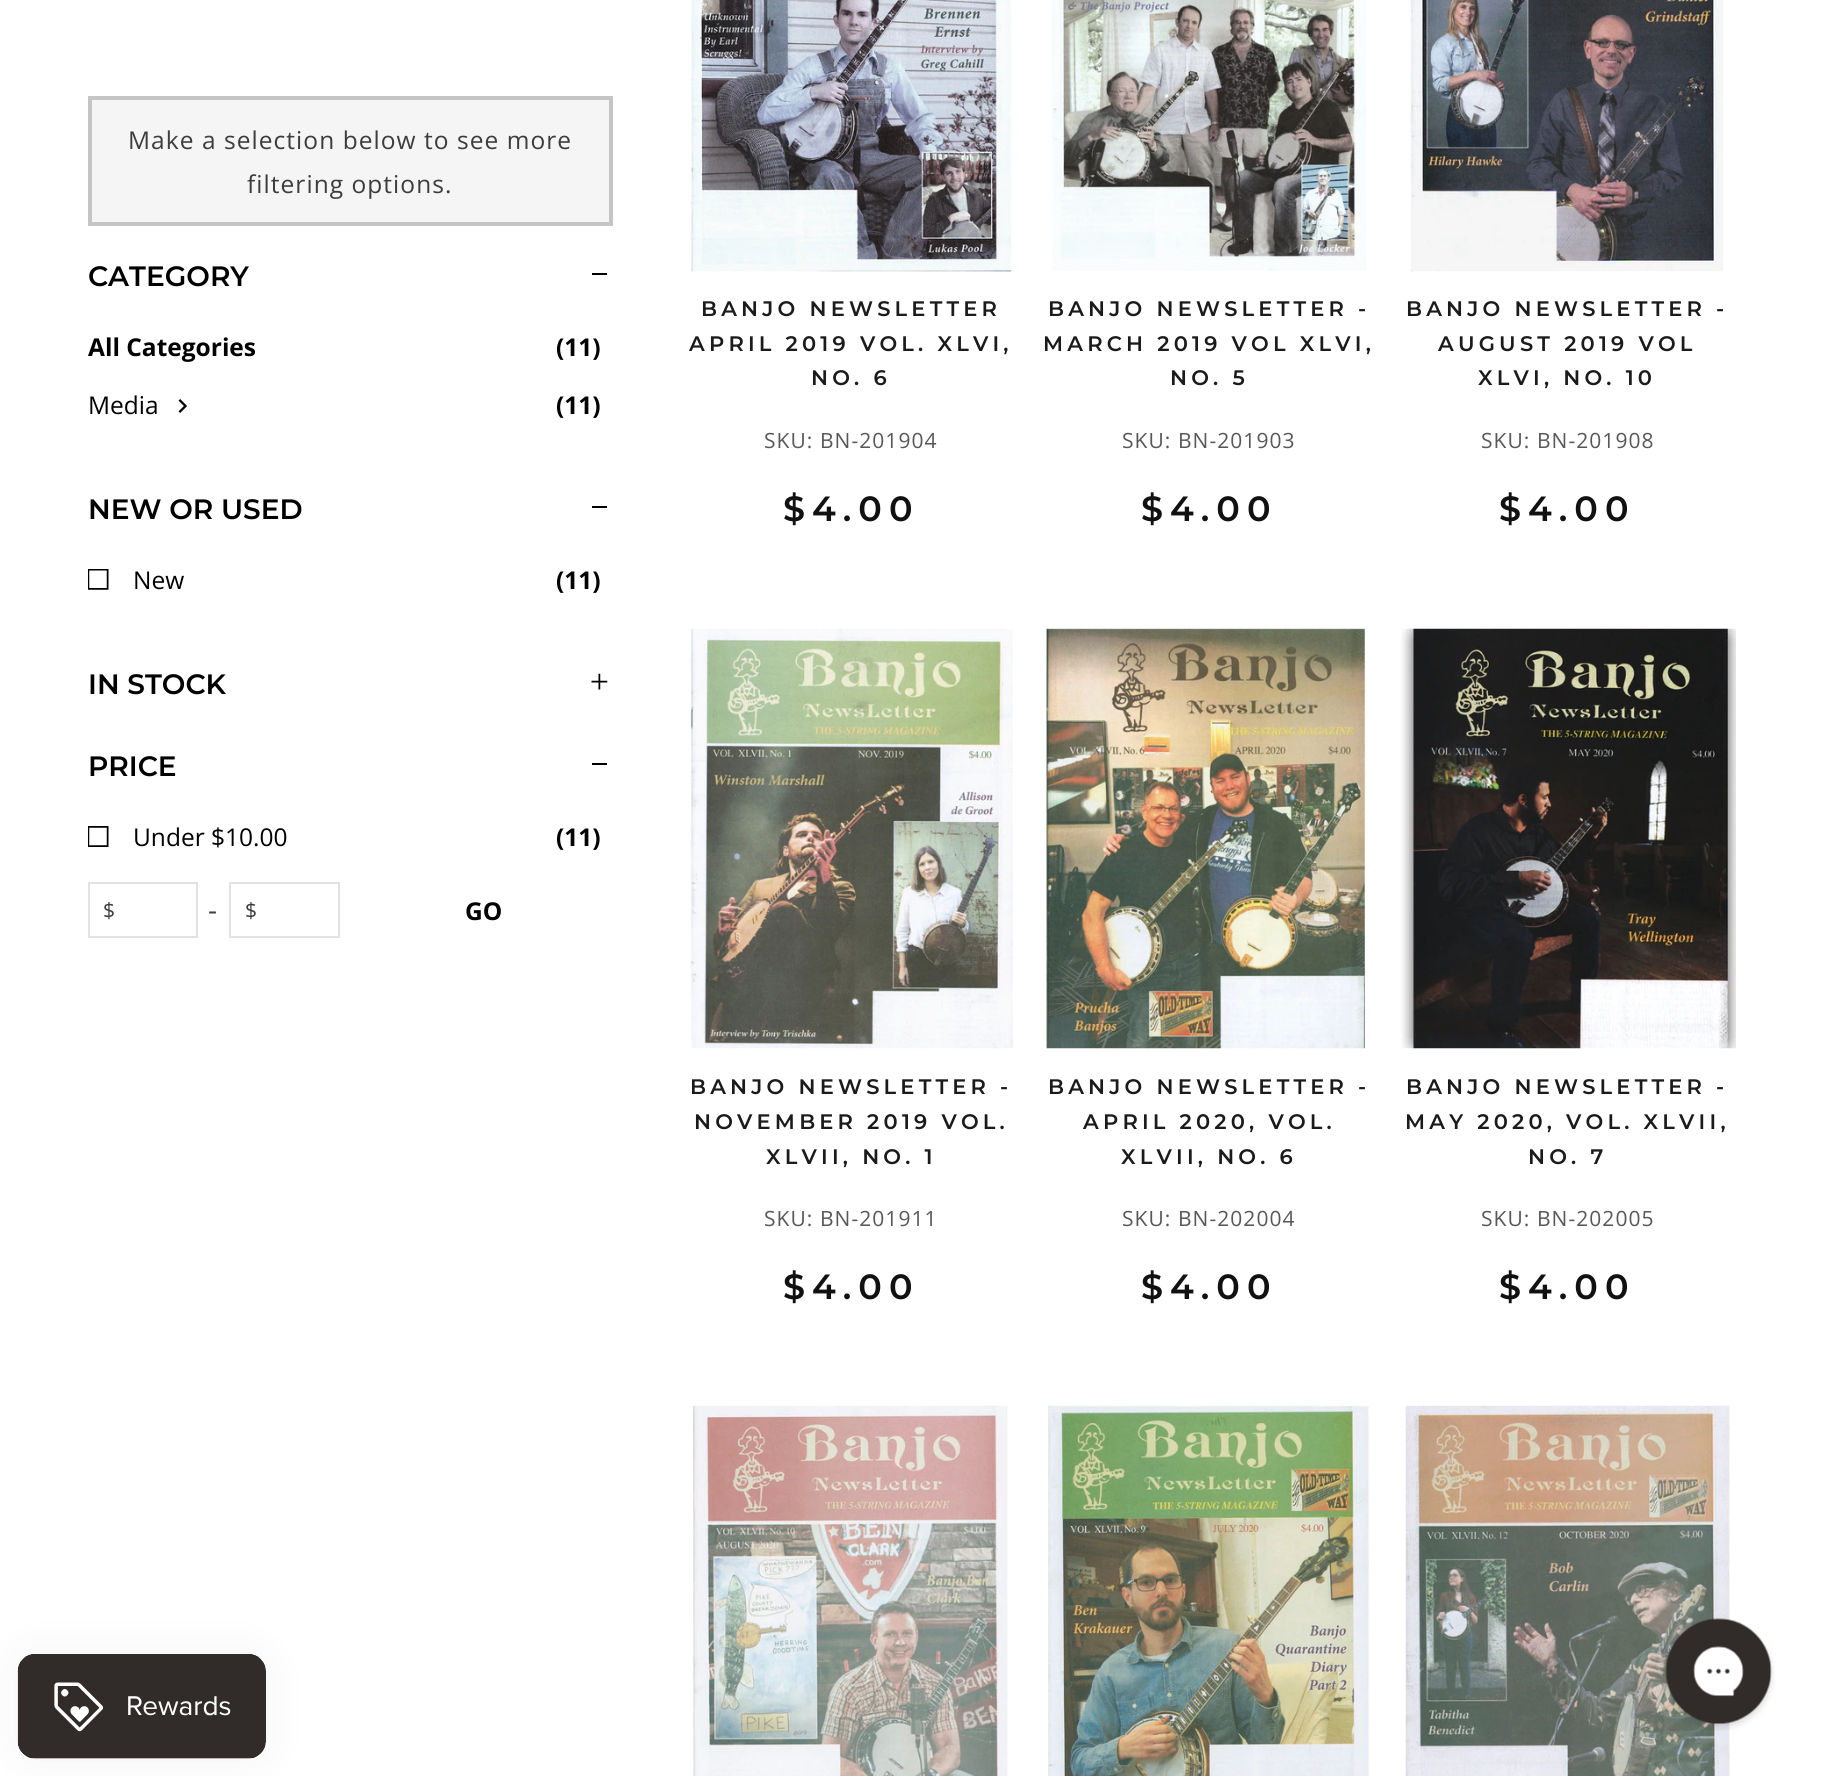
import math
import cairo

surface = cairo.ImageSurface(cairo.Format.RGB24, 1822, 1776)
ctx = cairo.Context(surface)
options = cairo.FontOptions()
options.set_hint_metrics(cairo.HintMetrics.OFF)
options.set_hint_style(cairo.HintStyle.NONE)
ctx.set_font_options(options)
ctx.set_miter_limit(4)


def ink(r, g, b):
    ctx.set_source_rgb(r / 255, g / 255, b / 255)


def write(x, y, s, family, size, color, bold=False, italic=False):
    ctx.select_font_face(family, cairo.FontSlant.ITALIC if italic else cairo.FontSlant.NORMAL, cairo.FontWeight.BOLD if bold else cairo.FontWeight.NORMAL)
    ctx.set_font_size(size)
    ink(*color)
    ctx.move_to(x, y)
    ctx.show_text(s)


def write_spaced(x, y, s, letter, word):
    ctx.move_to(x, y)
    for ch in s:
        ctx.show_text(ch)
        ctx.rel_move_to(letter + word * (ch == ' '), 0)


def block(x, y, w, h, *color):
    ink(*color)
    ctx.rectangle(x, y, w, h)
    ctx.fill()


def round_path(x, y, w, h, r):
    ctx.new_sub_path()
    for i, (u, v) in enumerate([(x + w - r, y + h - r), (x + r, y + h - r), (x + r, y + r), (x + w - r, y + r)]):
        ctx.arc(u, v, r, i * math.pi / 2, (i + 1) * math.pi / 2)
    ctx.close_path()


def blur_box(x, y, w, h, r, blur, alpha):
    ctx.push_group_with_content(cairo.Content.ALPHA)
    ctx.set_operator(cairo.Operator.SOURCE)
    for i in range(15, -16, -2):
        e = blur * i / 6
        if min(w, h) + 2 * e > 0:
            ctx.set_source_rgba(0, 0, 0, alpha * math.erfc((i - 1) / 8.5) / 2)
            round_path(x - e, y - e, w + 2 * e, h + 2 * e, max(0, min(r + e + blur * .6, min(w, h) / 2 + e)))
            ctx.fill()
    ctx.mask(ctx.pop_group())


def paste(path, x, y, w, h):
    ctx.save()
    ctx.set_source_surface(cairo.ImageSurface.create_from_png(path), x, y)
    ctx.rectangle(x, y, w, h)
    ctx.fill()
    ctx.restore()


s1 = dict(family="Montserrat SemiBold", size=28, color=(0, 0, 0))
s2 = dict(family="Open Sans", size=24.5, color=(0, 0, 0), bold=True)
s3 = dict(family="Open Sans", size=24.5, color=(0, 0, 0))

ink(255, 255, 255)
ctx.paint()
ink(245, 245, 245)
ctx.rectangle(90, 98, 521, 126)
ctx.fill_preserve()
ink(197, 197, 197)
ctx.set_line_width(4)
ctx.stroke()
ctx.select_font_face("Open Sans")
ctx.set_font_size(24.5)
ink(61, 61, 61)
write_spaced(128, 149, "Make a selection below to see more", 1.05, 0)
write_spaced(247, 193, "filtering options.", 1.05, 0)
write(88, 286, "CATEGORY", **s1)
block(592, 273, 15, 2, 0, 0, 0)
write(88, 356, "All Categories", **s2)
write(556, 356, "(11)", **s2)
write(88, 414, "Media", **s3)
paste("pic1.png", 178, 399, 9, 14)
write(556, 414, "(11)", **s2)
write(88, 519, "NEW OR USED", **s1)
block(592, 506, 15, 2, 0, 0, 0)
paste("pic2.png", 88, 569, 21, 21)
write(133, 589, "New", **s3)
write(556, 589, "(11)", **s2)
write(88, 694, "IN STOCK", **s1)
paste("pic3.png", 591, 673, 17, 17)
write(88, 776, "PRICE", **s1)
block(592, 763, 15, 2, 0, 0, 0)
paste("pic4.png", 88, 826, 21, 21)
write(133, 846, "Under $10.00", **s3)
write(556, 846, "(11)", **s2)
ctx.rectangle(89, 883, 108, 54)
ink(226, 226, 226)
ctx.set_line_width(2)
ctx.stroke()
ctx.select_font_face("Open Sans")
ctx.set_font_size(21)
ink(61, 61, 61)
write_spaced(103, 918, "$", 1.05, 0)
ctx.set_font_size(28)
write_spaced(208, 920, "-", 1.05, 0)
ctx.rectangle(230, 883, 109, 54)
ink(226, 226, 226)
ctx.stroke()
ctx.set_font_size(21)
ink(61, 61, 61)
write_spaced(245, 918, "$", 1.05, 0)
write(465, 920, "GO", **s2)
paste("pic5.png", 690, 0, 323, 272)
ctx.select_font_face("Montserrat SemiBold")
ctx.set_font_size(21)
ink(28, 27, 27)
write_spaced(701, 316, "BANJO NEWSLETTER", 4.2, 0)
write_spaced(689, 351, "APRIL 2019 VOL. XLVI,", 4.2, 0)
write_spaced(811, 385, "NO. 6", 4.2, 0)
ctx.select_font_face("Open Sans")
ink(88, 88, 88)
write_spaced(764, 448, "SKU: BN-201904", 1.05, 0)
ctx.select_font_face("Montserrat SemiBold")
ctx.set_font_size(35)
ink(17, 17, 17)
write_spaced(783, 521, "$4.00", 7, 0)
paste("pic6.png", 1051, 0, 316, 271)
ctx.set_font_size(21)
ink(28, 27, 27)
write_spaced(1048, 316, "BANJO NEWSLETTER -", 4.2, 0)
write_spaced(1043, 351, "MARCH 2019 VOL XLVI,", 4.2, 0)
write_spaced(1170, 385, "NO. 5", 4.2, 0)
ctx.select_font_face("Open Sans")
ink(88, 88, 88)
write_spaced(1122, 448, "SKU: BN-201903", 1.05, 0)
ctx.select_font_face("Montserrat SemiBold")
ctx.set_font_size(35)
ink(17, 17, 17)
write_spaced(1141, 521, "$4.00", 7, 0)
paste("pic7.png", 1409, 0, 314, 272)
ctx.set_font_size(21)
ink(28, 27, 27)
write_spaced(1406, 316, "BANJO NEWSLETTER -", 4.2, 0)
write_spaced(1438, 351, "AUGUST 2019 VOL", 4.2, 0)
write_spaced(1478, 385, "XLVI, NO. 10", 4.2, 0)
ctx.select_font_face("Open Sans")
ink(88, 88, 88)
write_spaced(1481, 448, "SKU: BN-201908", 1.05, 0)
ctx.select_font_face("Montserrat SemiBold")
ctx.set_font_size(35)
ink(17, 17, 17)
write_spaced(1499, 521, "$4.00", 7, 0)
paste("pic8.png", 690, 628, 323, 421)
ctx.set_font_size(21)
ink(28, 27, 27)
write_spaced(690, 1094, "BANJO NEWSLETTER -", 4.2, 0)
write_spaced(694, 1129, "NOVEMBER 2019 VOL.", 4.2, 0)
write_spaced(766, 1164, "XLVII, NO. 1", 4.2, 0)
ctx.select_font_face("Open Sans")
ink(88, 88, 88)
write_spaced(764, 1226, "SKU: BN-201911", 1.05, 0)
ctx.select_font_face("Montserrat SemiBold")
ctx.set_font_size(35)
ink(17, 17, 17)
write_spaced(783, 1299, "$4.00", 7, 0)
paste("pic9.png", 1045, 628, 322, 421)
ctx.set_font_size(21)
ink(28, 27, 27)
write_spaced(1048, 1094, "BANJO NEWSLETTER -", 4.2, 0)
write_spaced(1083, 1129, "APRIL 2020, VOL.", 4.2, 0)
write_spaced(1121, 1164, "XLVII, NO. 6", 4.2, 0)
ctx.select_font_face("Open Sans")
ink(88, 88, 88)
write_spaced(1122, 1226, "SKU: BN-202004", 1.05, 0)
ctx.select_font_face("Montserrat SemiBold")
ctx.set_font_size(35)
ink(17, 17, 17)
write_spaced(1141, 1299, "$4.00", 7, 0)
paste("pic10.png", 1401, 628, 335, 421)
ctx.set_font_size(21)
ink(28, 27, 27)
write_spaced(1406, 1094, "BANJO NEWSLETTER -", 4.2, 0)
write_spaced(1405, 1129, "MAY 2020, VOL. XLVII,", 4.2, 0)
write_spaced(1528, 1164, "NO. 7", 4.2, 0)
ctx.select_font_face("Open Sans")
ink(88, 88, 88)
write_spaced(1481, 1226, "SKU: BN-202005", 1.05, 0)
ctx.select_font_face("Montserrat SemiBold")
ctx.set_font_size(35)
ink(17, 17, 17)
write_spaced(1499, 1299, "$4.00", 7, 0)
paste("pic11.png", 693, 1405, 315, 371)
paste("pic12.png", 1048, 1405, 322, 371)
paste("pic13.png", 1405, 1405, 325, 371)
ink(0, 0, 0)
blur_box(18, 1654, 248, 105, 18, 22, 0.05)
paste("pic14.png", 17, 1654, 249, 105)
paste("pic15.png", 1663, 1618, 112, 113)
surface.write_to_png("screenshot.png")
